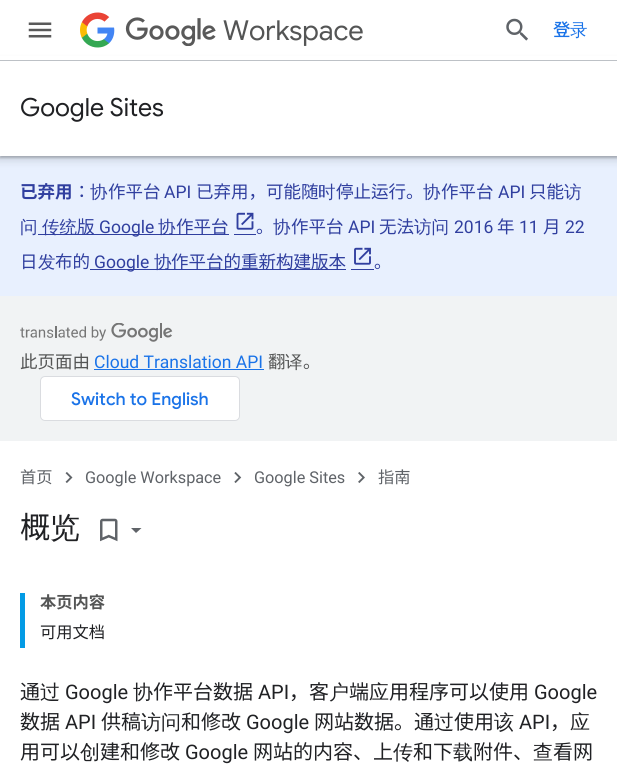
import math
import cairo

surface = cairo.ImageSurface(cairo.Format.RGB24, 617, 780)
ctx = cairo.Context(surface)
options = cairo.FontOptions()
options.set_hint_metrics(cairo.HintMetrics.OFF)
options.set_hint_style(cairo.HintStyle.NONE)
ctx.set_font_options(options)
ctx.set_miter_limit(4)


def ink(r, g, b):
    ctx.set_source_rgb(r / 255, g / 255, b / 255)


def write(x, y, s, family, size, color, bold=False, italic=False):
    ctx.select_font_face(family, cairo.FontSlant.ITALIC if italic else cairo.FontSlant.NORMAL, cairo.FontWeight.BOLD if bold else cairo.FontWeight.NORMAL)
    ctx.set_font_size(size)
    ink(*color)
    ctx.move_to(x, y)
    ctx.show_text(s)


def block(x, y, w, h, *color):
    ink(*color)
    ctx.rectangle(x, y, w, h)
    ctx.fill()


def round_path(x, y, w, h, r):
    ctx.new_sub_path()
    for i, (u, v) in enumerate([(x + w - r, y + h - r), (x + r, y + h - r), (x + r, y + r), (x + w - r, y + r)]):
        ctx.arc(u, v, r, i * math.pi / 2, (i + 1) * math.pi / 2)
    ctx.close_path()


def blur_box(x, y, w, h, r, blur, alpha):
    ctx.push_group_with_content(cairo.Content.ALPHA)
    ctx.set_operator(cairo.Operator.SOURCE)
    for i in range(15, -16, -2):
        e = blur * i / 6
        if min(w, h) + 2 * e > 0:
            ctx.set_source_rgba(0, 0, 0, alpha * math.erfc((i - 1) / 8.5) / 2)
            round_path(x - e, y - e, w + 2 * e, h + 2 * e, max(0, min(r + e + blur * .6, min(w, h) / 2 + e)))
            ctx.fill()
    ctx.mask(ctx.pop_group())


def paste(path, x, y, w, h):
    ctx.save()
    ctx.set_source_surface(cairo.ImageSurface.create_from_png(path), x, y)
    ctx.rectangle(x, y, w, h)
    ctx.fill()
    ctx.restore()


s1 = dict(family="Google Sans", size=27.5, color=(84, 85, 85))
s2 = dict(family="Noto Sans JP Medium", size=17.5, color=(26, 115, 232))
s3 = dict(family="WenQuanYi Zen Hei Medium", size=17.5, color=(26, 115, 232))
s4 = dict(family="Google Sans", size=25, color=(32, 33, 36))
s5 = dict(family="Noto Sans JP", size=17.5, color=(48, 63, 159), bold=True)
s6 = dict(family="Noto Sans JP", size=17.5, color=(48, 63, 159))
s7 = dict(family="WenQuanYi Zen Hei Medium", size=17.5, color=(48, 63, 159))
s8 = dict(family="Roboto", size=17.5, color=(48, 63, 159))
s9 = dict(family="Noto Sans JP", size=17.5, color=(84, 85, 85))
s10 = dict(family="Roboto", size=17.5, color=(26, 115, 232))
s11 = dict(family="WenQuanYi Zen Hei Medium", size=17.5, color=(84, 85, 85))
s12 = dict(family="Google Sans Medium", size=17.5, color=(26, 115, 232))
s13 = dict(family="Noto Sans JP", size=16.25, color=(95, 99, 104))
s14 = dict(family="Roboto", size=16.25, color=(95, 99, 104))
s15 = dict(family="Noto Sans JP", size=30, color=(32, 33, 36))
s16 = dict(family="WenQuanYi Zen Hei Medium", size=30, color=(32, 33, 36))
s17 = dict(family="Noto Sans JP", size=16.25, color=(84, 85, 85), bold=True)
s18 = dict(family="Noto Sans JP", size=16.25, color=(32, 33, 36))
s19 = dict(family="Noto Sans JP", size=20, color=(32, 33, 36))
s20 = dict(family="WenQuanYi Zen Hei Medium", size=20, color=(32, 33, 36))
s21 = dict(family="Roboto", size=20, color=(32, 33, 36))

ink(255, 255, 255)
ctx.paint()
block(0, 156, 617, 140, 232, 240, 254)
ink(60, 64, 67)
blur_box(-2, 61, 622, 100, 0, 4, 0.15)
blur_box(0, 63, 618, 95, 0, 1, 0.3)
block(0, 56, 617, 4, 255, 255, 255)
block(0, 60, 617, 1, 189, 193, 198)
paste("pic1.png", 28, 22, 24, 16)
paste("pic2.png", 80, 12, 35, 36)
paste("pic3.png", 125, 17, 91, 29)
write(223, 40, "Workspace", **s1)
paste("pic4.png", 506, 18, 22, 23)
write(553, 36, "登", **s2)
write(570, 36, "录", **s3)
block(0, 61, 617, 95, 255, 255, 255)
write(20, 116, "Google Sites", **s4)
write(20, 198, "已弃用", **s5)
write(73, 198, "：", **s6)
write(90, 198, "协", **s7)
write(108, 198, "作平台", **s6)
write(164, 198, "API", **s8)
write(196, 198, "已弃用，可能随", **s6)
write(318, 198, "时", **s7)
write(336, 198, "停止运行。", **s6)
write(423, 198, "协", **s7)
write(441, 198, "作平台", **s6)
write(498, 198, "API", **s8)
write(529, 198, "只能", **s6)
write(564, 198, "访", **s7)
write(20, 233, "问", **s7)
block(38, 234, 191, 1, 48, 63, 159)
write(42, 233, "传统", **s7)
write(77, 233, "版", **s6)
write(99, 233, "Google", **s8)
write(158, 233, "协", **s7)
write(176, 233, "作平台", **s6)
block(234, 234, 22, 1, 48, 63, 159)
paste("pic5.png", 236, 212, 18, 18)
write(256, 233, "。", **s6)
write(273, 233, "协", **s7)
write(291, 233, "作平台", **s6)
write(348, 233, "API", **s8)
write(379, 233, "无法", **s6)
write(414, 233, "访问", **s7)
write(454, 233, "2016", **s8)
write(497, 233, "年", **s6)
write(519, 233, "11", **s8)
write(543, 233, "月", **s6)
write(565, 233, "22", **s8)
write(20, 268, "日", **s6)
write(38, 268, "发", **s7)
write(55, 268, "布的", **s6)
block(90, 269, 256, 1, 48, 63, 159)
write(94, 268, "Google", **s8)
write(154, 268, "协", **s7)
write(171, 268, "作平台的重新构建版本", **s6)
block(351, 269, 23, 1, 48, 63, 159)
paste("pic6.png", 354, 247, 17, 18)
write(374, 268, "。", **s6)
block(0, 296, 617, 145, 241, 243, 244)
paste("pic7.png", 20, 323, 153, 19)
write(20, 368, "此页面由", **s9)
write(94, 368, "Cloud Translation API", **s10)
block(94, 369, 170, 1, 26, 115, 232)
write(268, 368, "翻", **s9)
write(285, 368, "译", **s11)
write(303, 368, "。", **s9)
ink(255, 255, 255)
round_path(40.5, 376.5, 199, 44, 4.5)
ctx.fill_preserve()
ink(218, 220, 224)
ctx.set_line_width(1)
ctx.stroke()
write(71, 405, "Switch to English", **s12)
write(20, 483, "首页", **s13)
paste("pic8.png", 65, 472, 8, 11)
write(85, 483, "Google Workspace", **s14)
paste("pic9.png", 234, 472, 8, 11)
write(254, 483, "Google Sites", **s14)
paste("pic10.png", 358, 472, 7, 11)
write(378, 483, "指南", **s13)
write(20, 538, "概", **s15)
write(50, 538, "览", **s16)
paste("pic11.png", 100, 518, 18, 24)
ink(95, 99, 104)
ctx.new_path()
ctx.move_to(131, 528)
ctx.line_to(141.5, 528)
ctx.line_to(136, 533)
ctx.close_path()
ctx.fill()
block(20, 593, 5, 55, 3, 155, 229)
write(40, 608, "本页内容", **s17)
write(40, 638, "可用文档", **s18)
write(20, 699, "通", **s19)
write(40, 699, "过", **s20)
write(65, 699, "Google", **s21)
write(133, 699, "协", **s20)
write(153, 699, "作平台数据", **s19)
write(258, 699, "API", **s21)
write(289, 699, "，客", **s19)
write(329, 699, "户", **s20)
write(349, 699, "端", **s19)
write(369, 699, "应", **s20)
write(389, 699, "用程序可以使用", **s19)
write(534, 699, "Google", **s21)
write(20, 729, "数据", **s19)
write(65, 729, "API", **s21)
write(101, 729, "供稿", **s19)
write(141, 729, "访问", **s20)
write(181, 729, "和修改", **s19)
write(246, 729, "Google", **s21)
write(314, 729, "网站数据。通", **s19)
write(434, 729, "过", **s20)
write(454, 729, "使用", **s19)
write(494, 729, "该", **s20)
write(519, 729, "API", **s21)
write(550, 729, "，", **s19)
write(570, 729, "应", **s20)
write(20, 759, "用可以", **s19)
write(80, 759, "创", **s20)
write(100, 759, "建和修改", **s19)
write(185, 759, "Google", **s21)
write(253, 759, "网站的内容、上", **s19)
write(393, 759, "传", **s20)
write(413, 759, "和下", **s19)
write(453, 759, "载", **s20)
write(473, 759, "附件、", **s19)
write(533, 759, "查", **s20)
write(553, 759, "看网", **s19)
surface.write_to_png("screenshot.png")
